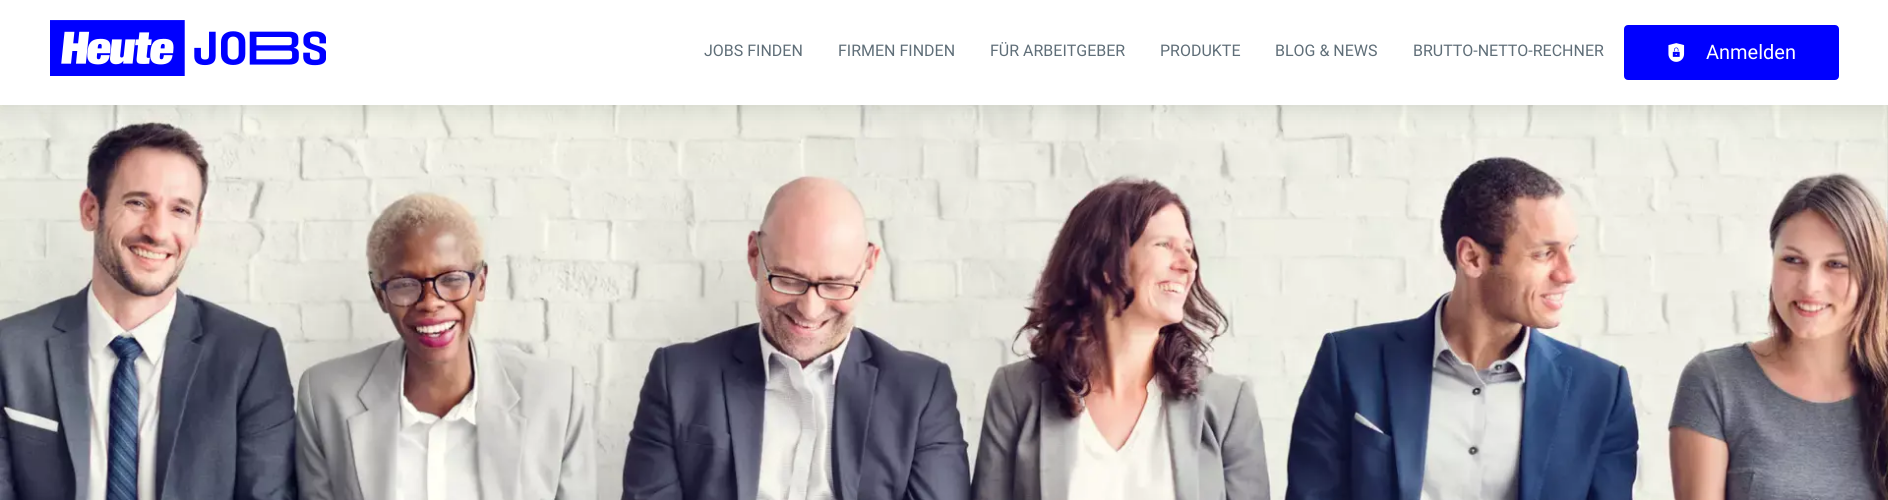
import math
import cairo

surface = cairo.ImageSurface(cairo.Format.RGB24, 1888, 500)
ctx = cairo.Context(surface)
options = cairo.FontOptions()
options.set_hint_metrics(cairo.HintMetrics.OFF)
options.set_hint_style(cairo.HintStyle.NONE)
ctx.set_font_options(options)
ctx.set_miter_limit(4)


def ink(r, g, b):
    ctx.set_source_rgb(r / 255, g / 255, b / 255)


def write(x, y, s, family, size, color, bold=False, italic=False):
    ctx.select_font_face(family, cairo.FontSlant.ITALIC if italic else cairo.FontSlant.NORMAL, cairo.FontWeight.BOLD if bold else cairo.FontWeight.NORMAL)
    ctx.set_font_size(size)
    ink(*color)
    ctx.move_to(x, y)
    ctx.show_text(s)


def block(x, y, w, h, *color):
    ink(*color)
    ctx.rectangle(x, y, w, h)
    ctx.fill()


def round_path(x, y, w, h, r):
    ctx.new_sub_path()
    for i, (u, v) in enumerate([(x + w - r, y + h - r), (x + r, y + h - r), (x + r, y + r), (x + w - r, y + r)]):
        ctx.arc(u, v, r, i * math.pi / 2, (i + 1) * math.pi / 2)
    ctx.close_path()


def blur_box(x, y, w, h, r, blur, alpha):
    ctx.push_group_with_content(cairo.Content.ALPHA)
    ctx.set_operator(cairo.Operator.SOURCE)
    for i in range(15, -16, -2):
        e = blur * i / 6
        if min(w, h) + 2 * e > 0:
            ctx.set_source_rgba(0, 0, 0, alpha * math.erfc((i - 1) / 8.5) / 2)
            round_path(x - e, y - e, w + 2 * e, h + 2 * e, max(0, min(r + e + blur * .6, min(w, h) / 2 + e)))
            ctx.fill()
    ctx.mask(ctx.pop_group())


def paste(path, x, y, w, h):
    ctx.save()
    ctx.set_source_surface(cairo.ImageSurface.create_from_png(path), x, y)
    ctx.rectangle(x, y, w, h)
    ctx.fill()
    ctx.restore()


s1 = dict(family="Roboto", size=16, color=(95, 110, 120))
s2 = dict(family="Roboto", size=20, color=(255, 255, 255))

ink(255, 255, 255)
ctx.paint()
paste("pic3.png", 0, 105, 1888, 395)
ink(0, 0, 0)
blur_box(0, 4, 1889, 105, 0, 9.5, 0.1)
block(0, 0, 1888, 105, 255, 255, 255)
paste("pic1.png", 50, 20, 276, 56)
write(704, 56, "JOBS FINDEN", **s1)
write(838, 56, "FIRMEN FINDEN", **s1)
write(990, 56, "FÜR ARBEITGEBER", **s1)
write(1160, 56, "PRODUKTE", **s1)
write(1275, 56, "BLOG & NEWS", **s1)
write(1413, 56, "BRUTTO-NETTO-RECHNER", **s1)
ink(0, 0, 255)
round_path(1625.5, 26.5, 212, 52, 2.5)
ctx.fill_preserve()
ctx.set_line_width(3)
ctx.stroke()
paste("pic2.png", 1668, 43, 17, 19)
write(1706, 59, "Anmelden", **s2)
surface.write_to_png("screenshot.png")
